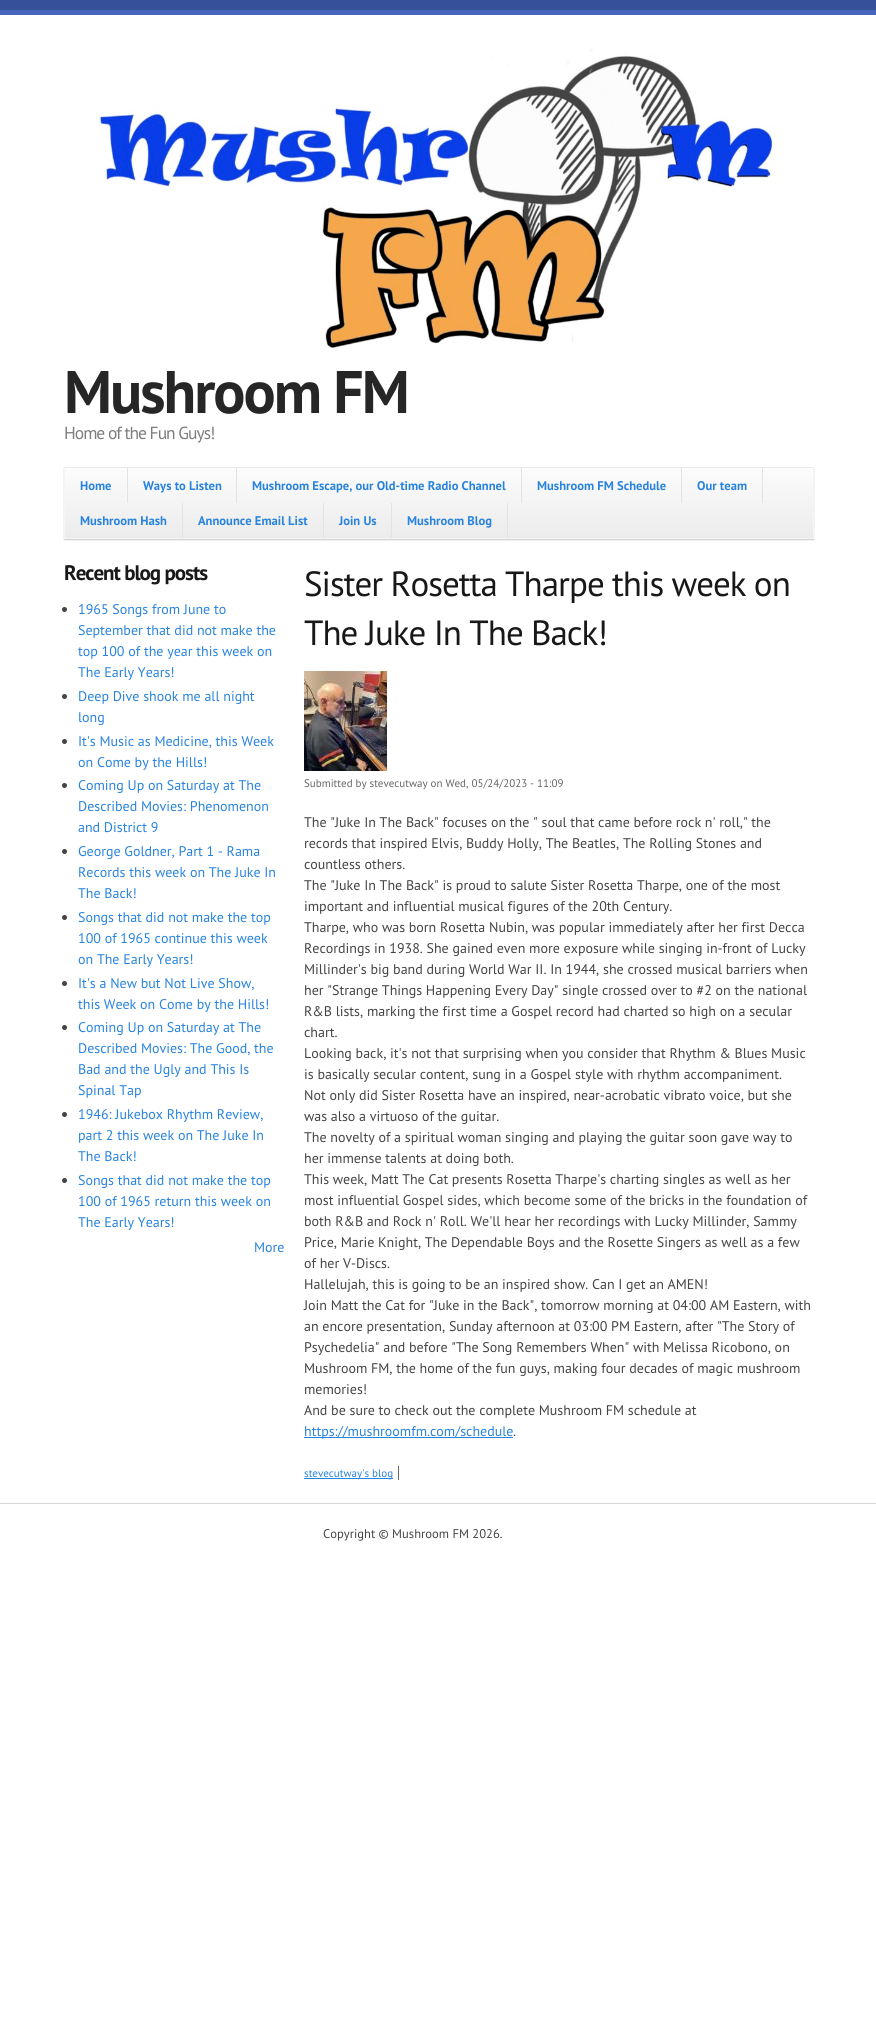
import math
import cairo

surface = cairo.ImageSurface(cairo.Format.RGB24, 876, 2038)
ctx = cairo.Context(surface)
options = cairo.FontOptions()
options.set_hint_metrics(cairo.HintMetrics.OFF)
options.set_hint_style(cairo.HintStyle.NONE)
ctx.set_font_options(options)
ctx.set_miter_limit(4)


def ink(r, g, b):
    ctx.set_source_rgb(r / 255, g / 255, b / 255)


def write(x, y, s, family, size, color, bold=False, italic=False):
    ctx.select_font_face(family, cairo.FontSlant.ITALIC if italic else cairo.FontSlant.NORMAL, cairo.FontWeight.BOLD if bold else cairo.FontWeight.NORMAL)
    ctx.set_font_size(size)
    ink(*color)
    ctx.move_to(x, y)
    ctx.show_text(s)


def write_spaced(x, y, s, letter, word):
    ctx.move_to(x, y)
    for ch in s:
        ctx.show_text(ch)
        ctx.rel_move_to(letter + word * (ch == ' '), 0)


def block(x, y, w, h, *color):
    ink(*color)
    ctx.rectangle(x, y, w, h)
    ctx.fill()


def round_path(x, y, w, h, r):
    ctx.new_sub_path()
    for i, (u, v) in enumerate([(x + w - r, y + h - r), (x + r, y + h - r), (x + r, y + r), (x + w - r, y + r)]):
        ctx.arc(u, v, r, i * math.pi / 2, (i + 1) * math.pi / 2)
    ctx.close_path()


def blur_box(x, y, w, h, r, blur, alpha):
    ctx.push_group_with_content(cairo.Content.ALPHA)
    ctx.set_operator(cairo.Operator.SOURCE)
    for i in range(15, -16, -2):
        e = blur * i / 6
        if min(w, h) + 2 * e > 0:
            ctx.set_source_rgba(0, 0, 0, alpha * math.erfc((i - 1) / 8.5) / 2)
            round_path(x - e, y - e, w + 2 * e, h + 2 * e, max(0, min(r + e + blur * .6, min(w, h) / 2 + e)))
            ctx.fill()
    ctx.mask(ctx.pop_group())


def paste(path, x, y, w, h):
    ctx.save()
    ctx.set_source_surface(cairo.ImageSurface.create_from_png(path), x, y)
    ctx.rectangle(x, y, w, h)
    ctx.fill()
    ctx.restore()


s1 = dict(family="PT Sans", size=12.6, color=(40, 131, 222), bold=True)
s2 = dict(family="PT Sans", size=14, color=(40, 131, 222))
s3 = dict(family="PT Sans", size=11, color=(102, 102, 102))
s4 = dict(family="PT Sans", size=14, color=(68, 68, 68))
s5 = dict(family="PT Sans", size=11, color=(40, 131, 222))
s6 = dict(family="PT Sans", size=12.6, color=(68, 68, 68))

ink(255, 255, 255)
ctx.paint()
block(0, 0, 876, 10, 55, 81, 153)
block(0, 10, 876, 5, 69, 101, 190)
paste("pic1.png", 95, 47, 683, 301)
ctx.select_font_face("PT Sans", cairo.FontSlant.NORMAL, cairo.FontWeight.BOLD)
ctx.set_font_size(60)
ink(38, 38, 38)
write_spaced(64, 413, "Mushroom FM", -2, 0)
ctx.select_font_face("PT Sans")
ctx.set_font_size(17.5)
ink(125, 125, 125)
write_spaced(64, 439, "Home of the Fun Guys!", -1, 0)
ink(0, 0, 0)
blur_box(64, 468, 750, 72, 0, 0.5, 0.2)
gradient = cairo.LinearGradient(439, 468, 439, 538)
gradient.add_color_stop_rgba(0, 0.988, 0.988, 0.988, 1)
gradient.add_color_stop_rgba(1, 0.925, 0.925, 0.925, 1)
ctx.set_source(gradient)
ctx.rectangle(65, 468, 748, 70)
ctx.fill()
block(64, 467, 750, 1, 234, 234, 234)
block(813, 467, 1, 72, 245, 245, 245)
block(64, 538, 750, 1, 245, 245, 245)
block(64, 467, 1, 72, 245, 245, 245)
block(127, 468, 1, 35, 227, 227, 227)
write(80, 490, "Home", **s1)
block(236, 468, 1, 35, 227, 227, 227)
write(143, 490, "Ways to Listen", **s1)
block(521, 468, 1, 35, 227, 227, 227)
write(252, 490, "Mushroom Escape, our Old-time Radio Channel", **s1)
block(681, 468, 1, 35, 227, 227, 227)
write(537, 490, "Mushroom FM Schedule", **s1)
block(762, 468, 1, 35, 227, 227, 227)
write(697, 490, "Our team", **s1)
block(182, 503, 1, 35, 227, 227, 227)
write(80, 525, "Mushroom Hash", **s1)
block(323, 503, 1, 35, 227, 227, 227)
write(198, 525, "Announce Email List", **s1)
block(391, 503, 1, 35, 227, 227, 227)
write(339, 525, "Join Us", **s1)
block(507, 503, 1, 35, 227, 227, 227)
write(407, 525, "Mushroom Blog", **s1)
ctx.set_font_size(21)
ink(24, 24, 24)
write_spaced(64, 580, "Recent blog posts", -1, 0)
ink(68, 68, 68)
ctx.new_path()
ctx.arc(64.5, 609.5, 2.5, 0, 2 * math.pi)
ctx.fill()
write(78, 614, "1965 Songs from June to", **s2)
write(78, 635, "September that did not make the", **s2)
write(78, 656, "top 100 of the year this week on", **s2)
write(78, 677, "The Early Years!", **s2)
ink(68, 68, 68)
ctx.new_path()
ctx.arc(64.5, 696.5, 2.5, 0, 2 * math.pi)
ctx.fill()
write(78, 701, "Deep Dive shook me all night", **s2)
write(78, 722, "long", **s2)
ink(68, 68, 68)
ctx.new_path()
ctx.arc(64.5, 741.5, 2.5, 0, 2 * math.pi)
ctx.fill()
write(78, 746, "It's Music as Medicine, this Week", **s2)
write(78, 767, "on Come by the Hills!", **s2)
ink(68, 68, 68)
ctx.new_path()
ctx.arc(64.5, 785.5, 2.5, 0, 2 * math.pi)
ctx.fill()
write(78, 790, "Coming Up on Saturday at The", **s2)
write(78, 811, "Described Movies: Phenomenon", **s2)
write(78, 832, "and District 9", **s2)
ink(68, 68, 68)
ctx.new_path()
ctx.arc(64.5, 851.5, 2.5, 0, 2 * math.pi)
ctx.fill()
write(78, 856, "George Goldner, Part 1 - Rama", **s2)
write(78, 877, "Records this week on The Juke In", **s2)
write(78, 898, "The Back!", **s2)
ink(68, 68, 68)
ctx.new_path()
ctx.arc(64.5, 917.5, 2.5, 0, 2 * math.pi)
ctx.fill()
write(78, 922, "Songs that did not make the top", **s2)
write(78, 943, "100 of 1965 continue this week", **s2)
write(78, 964, "on The Early Years!", **s2)
ink(68, 68, 68)
ctx.new_path()
ctx.arc(64.5, 983.5, 2.5, 0, 2 * math.pi)
ctx.fill()
write(78, 988, "It's a New but Not Live Show,", **s2)
write(78, 1009, "this Week on Come by the Hills!", **s2)
ink(68, 68, 68)
ctx.new_path()
ctx.arc(64.5, 1027.5, 2.5, 0, 2 * math.pi)
ctx.fill()
write(78, 1032, "Coming Up on Saturday at The", **s2)
write(78, 1053, "Described Movies: The Good, the", **s2)
write(78, 1074, "Bad and the Ugly and This Is", **s2)
write(78, 1095, "Spinal Tap", **s2)
ink(68, 68, 68)
ctx.new_path()
ctx.arc(64.5, 1114.5, 2.5, 0, 2 * math.pi)
ctx.fill()
write(78, 1119, "1946: Jukebox Rhythm Review,", **s2)
write(78, 1140, "part 2 this week on The Juke In", **s2)
write(78, 1161, "The Back!", **s2)
ink(68, 68, 68)
ctx.new_path()
ctx.arc(64.5, 1180.5, 2.5, 0, 2 * math.pi)
ctx.fill()
write(78, 1185, "Songs that did not make the top", **s2)
write(78, 1206, "100 of 1965 return this week on", **s2)
write(78, 1227, "The Early Years!", **s2)
write(254, 1252, "More", **s2)
ctx.set_font_size(35)
ink(24, 24, 24)
write_spaced(304, 596, "Sister Rosetta Tharpe this week on", -1, 0)
write_spaced(304, 645, "The Juke In The Back!", -1, 0)
paste("pic2.png", 304, 671, 83, 100)
write(304, 787, "Submitted by stevecutway on Wed, 05/24/2023 - 11:09", **s3)
write(304, 827, "The \"Juke In The Back\" focuses on the \" soul that came before rock n' roll,\" the", **s4)
write(304, 848, "records that inspired Elvis, Buddy Holly, The Beatles, The Rolling Stones and", **s4)
write(304, 869, "countless others.", **s4)
write(304, 890, "The \"Juke In The Back\" is proud to salute Sister Rosetta Tharpe, one of the most", **s4)
write(304, 911, "important and influential musical figures of the 20th Century.", **s4)
write(304, 932, "Tharpe, who was born Rosetta Nubin, was popular immediately after her first Decca", **s4)
write(304, 953, "Recordings in 1938. She gained even more exposure while singing in-front of Lucky", **s4)
write(304, 974, "Millinder's big band during World War II. In 1944, she crossed musical barriers when", **s4)
write(304, 995, "her \"Strange Things Happening Every Day\" single crossed over to #2 on the national", **s4)
write(304, 1016, "R&B lists, marking the first time a Gospel record had charted so high on a secular", **s4)
write(304, 1037, "chart.", **s4)
write(304, 1058, "Looking back, it's not that surprising when you consider that Rhythm & Blues Music", **s4)
write(304, 1079, "is basically secular content, sung in a Gospel style with rhythm accompaniment.", **s4)
write(304, 1100, "Not only did Sister Rosetta have an inspired, near-acrobatic vibrato voice, but she", **s4)
write(304, 1121, "was also a virtuoso of the guitar.", **s4)
write(304, 1142, "The novelty of a spiritual woman singing and playing the guitar soon gave way to", **s4)
write(304, 1163, "her immense talents at doing both.", **s4)
write(304, 1184, "This week, Matt The Cat presents Rosetta Tharpe's charting singles as well as her", **s4)
write(304, 1205, "most influential Gospel sides, which become some of the bricks in the foundation of", **s4)
write(304, 1226, "both R&B and Rock n' Roll. We'll hear her recordings with Lucky Millinder, Sammy", **s4)
write(304, 1247, "Price, Marie Knight, The Dependable Boys and the Rosette Singers as well as a few", **s4)
write(304, 1268, "of her V-Discs.", **s4)
write(304, 1289, "Hallelujah, this is going to be an inspired show. Can I get an AMEN!", **s4)
write(304, 1310, "Join Matt the Cat for \"Juke in the Back\", tomorrow morning at 04:00 AM Eastern, with", **s4)
write(304, 1331, "an encore presentation, Sunday afternoon at 03:00 PM Eastern, after \"The Story of", **s4)
write(304, 1352, "Psychedelia\" and before \"The Song Remembers When\" with Melissa Ricobono, on", **s4)
write(304, 1373, "Mushroom FM, the home of the fun guys, making four decades of magic mushroom", **s4)
write(304, 1394, "memories!", **s4)
write(304, 1415, "And be sure to check out the complete Mushroom FM schedule at", **s4)
block(304, 1437, 209, 1, 40, 131, 222)
write(304, 1436, "https://mushroomfm.com/schedule", **s2)
write(513, 1436, ".", **s4)
block(304, 1478, 89, 1, 40, 131, 222)
write(304, 1477, "stevecutway's blog", **s5)
block(398, 1466, 1, 14, 102, 102, 102)
block(0, 1503, 876, 1, 214, 214, 214)
write(323, 1538, "Copyright © Mushroom FM 2026.", **s6)
surface.write_to_png("screenshot.png")
